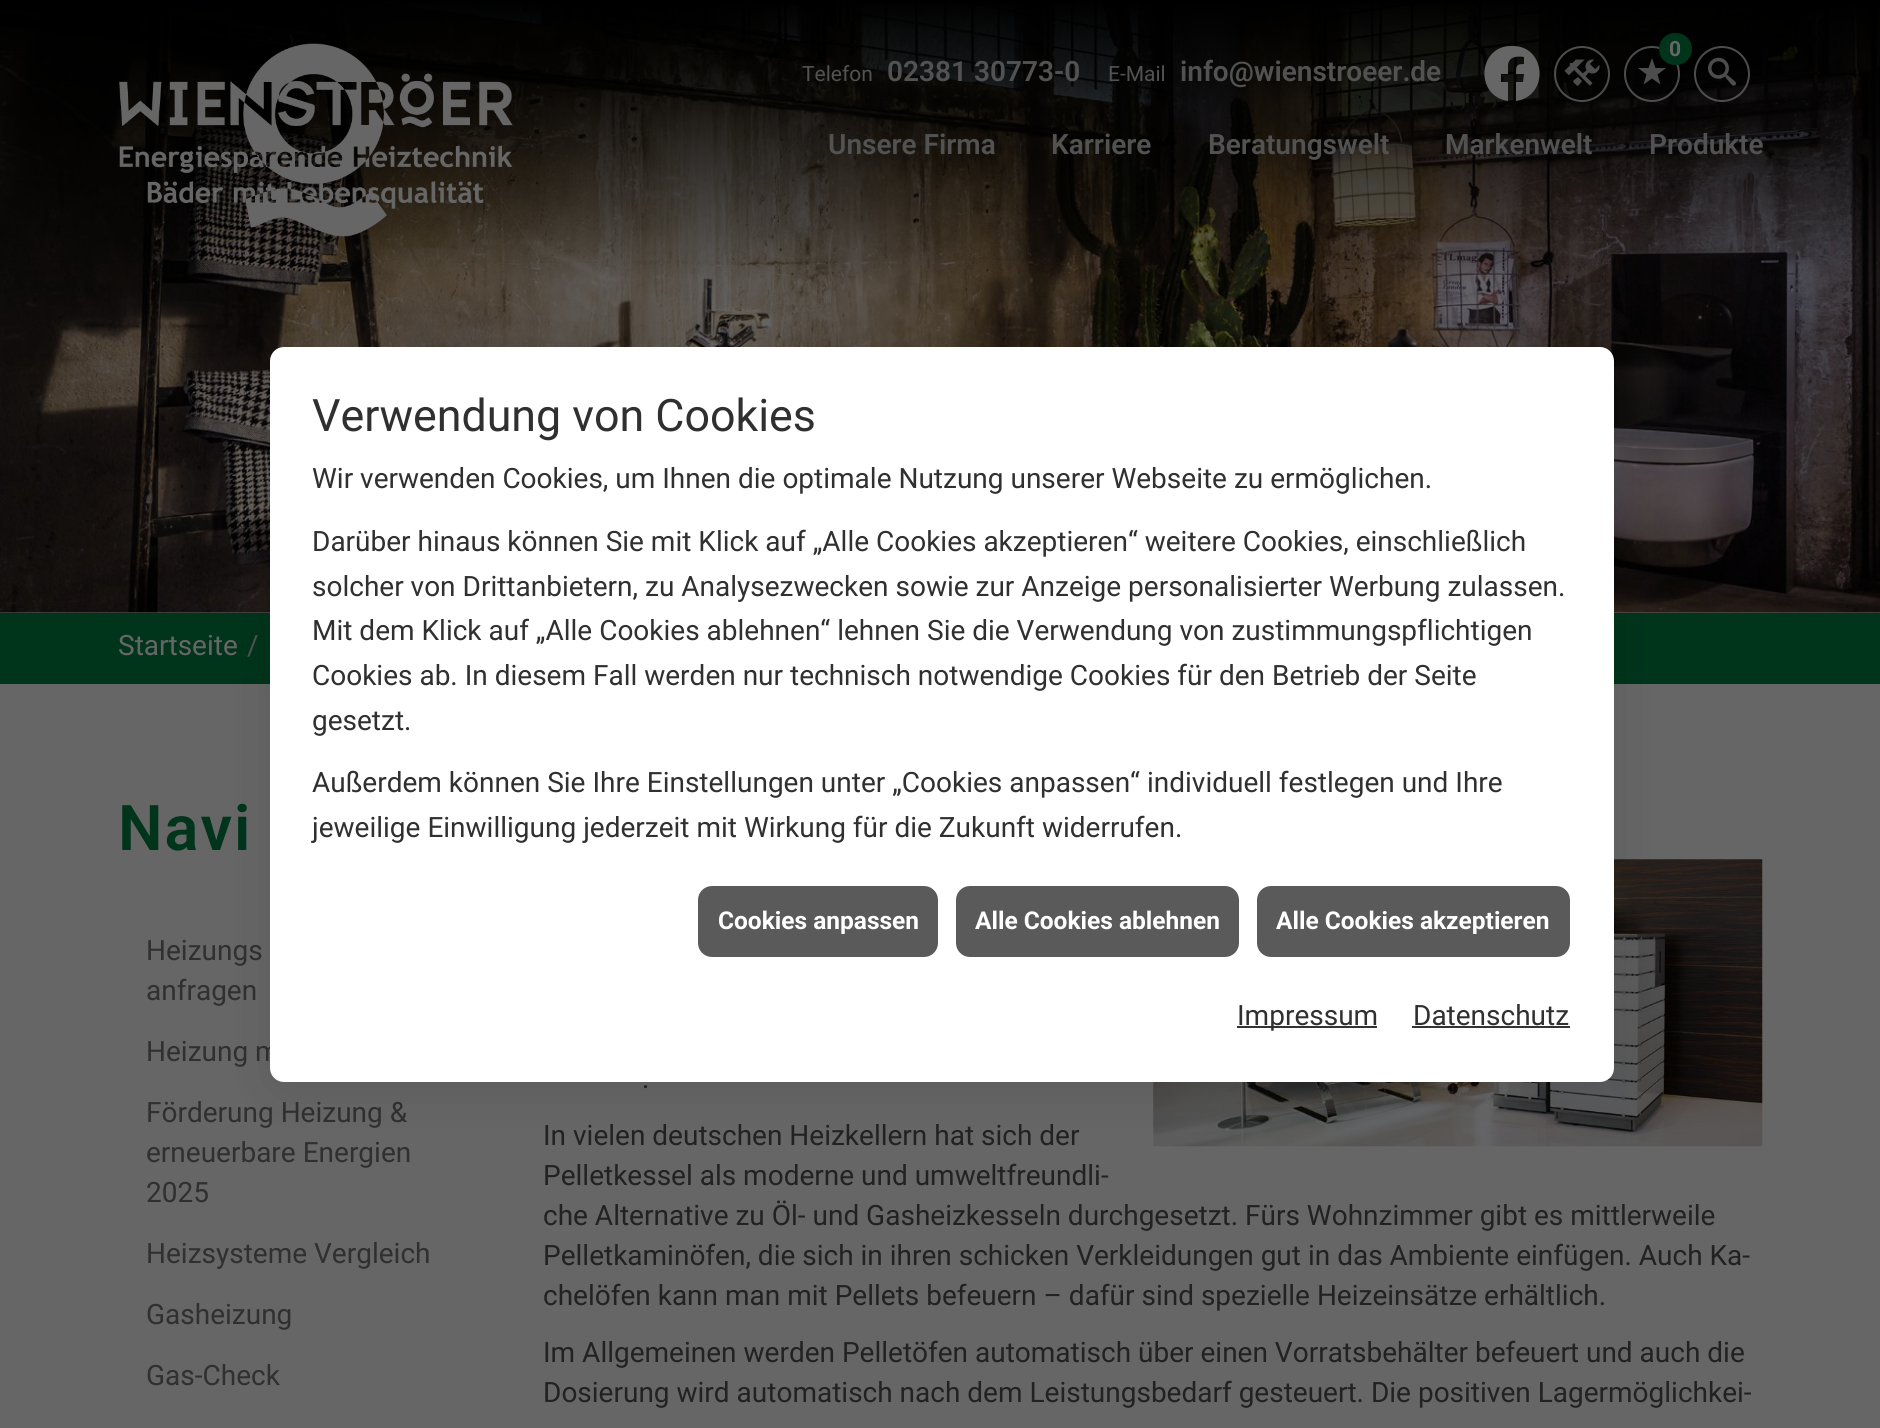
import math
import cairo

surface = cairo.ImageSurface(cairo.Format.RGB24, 1880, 1428)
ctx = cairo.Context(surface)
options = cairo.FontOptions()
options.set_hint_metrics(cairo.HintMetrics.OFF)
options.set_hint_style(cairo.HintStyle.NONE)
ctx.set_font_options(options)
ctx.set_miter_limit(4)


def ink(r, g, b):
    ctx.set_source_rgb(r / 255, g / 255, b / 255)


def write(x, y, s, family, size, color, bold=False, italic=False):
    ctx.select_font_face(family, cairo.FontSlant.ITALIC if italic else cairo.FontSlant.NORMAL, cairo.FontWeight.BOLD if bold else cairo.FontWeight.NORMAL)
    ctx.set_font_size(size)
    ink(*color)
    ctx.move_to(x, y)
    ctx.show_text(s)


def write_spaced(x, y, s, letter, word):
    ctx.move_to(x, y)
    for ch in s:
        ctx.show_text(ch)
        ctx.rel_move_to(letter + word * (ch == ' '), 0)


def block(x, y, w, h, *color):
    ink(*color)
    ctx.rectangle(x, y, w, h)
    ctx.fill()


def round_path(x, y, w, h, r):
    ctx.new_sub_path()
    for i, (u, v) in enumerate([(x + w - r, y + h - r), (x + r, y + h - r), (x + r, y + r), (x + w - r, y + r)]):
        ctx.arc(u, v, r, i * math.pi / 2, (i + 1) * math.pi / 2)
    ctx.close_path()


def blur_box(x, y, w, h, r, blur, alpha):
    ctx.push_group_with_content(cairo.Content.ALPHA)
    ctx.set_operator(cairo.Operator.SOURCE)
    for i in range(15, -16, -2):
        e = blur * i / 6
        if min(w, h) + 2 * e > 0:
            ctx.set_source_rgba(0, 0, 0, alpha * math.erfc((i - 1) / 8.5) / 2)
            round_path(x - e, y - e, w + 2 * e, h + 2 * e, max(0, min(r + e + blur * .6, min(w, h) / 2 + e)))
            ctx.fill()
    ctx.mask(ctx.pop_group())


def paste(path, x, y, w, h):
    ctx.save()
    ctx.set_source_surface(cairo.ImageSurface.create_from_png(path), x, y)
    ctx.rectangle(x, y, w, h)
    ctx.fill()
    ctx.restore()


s1 = dict(family="Roboto", size=21, color=(102, 102, 102), bold=True)
s2 = dict(family="Roboto", size=21, color=(82, 82, 82))
s3 = dict(family="Roboto SemiBold", size=28, color=(82, 82, 82))
s4 = dict(family="Roboto", size=28, color=(102, 102, 102))
s5 = dict(family="Roboto", size=28, color=(82, 82, 82))
s6 = dict(family="Roboto", size=28, color=(48, 48, 48))
s7 = dict(family="Roboto", size=28, color=(34, 34, 34))
s8 = dict(family="Roboto", size=44.75, color=(48, 48, 48))
s9 = dict(family="Roboto", size=24.5, color=(255, 255, 255), bold=True)

ink(102, 102, 102)
ctx.paint()
paste("pic1.png", 0, 0, 1880, 613)
paste("pic2.png", 119, 43, 394, 194)
ink(102, 102, 102)
ctx.new_path()
ctx.move_to(1512, 46)
ctx.curve_to(1478, 45, 1474, 96, 1508, 101)
ctx.line_to(1508, 82)
ctx.line_to(1501, 82)
ctx.line_to(1501, 74)
ctx.line_to(1508, 74)
ctx.line_to(1508, 65)
ctx.curve_to(1509, 56, 1518, 56, 1524, 57)
ctx.line_to(1524, 64)
ctx.curve_to(1516, 64, 1516, 66, 1516, 74)
ctx.line_to(1524, 74)
ctx.line_to(1523, 82)
ctx.line_to(1516, 82)
ctx.line_to(1516, 101)
ctx.curve_to(1550, 96, 1546, 45, 1512, 46)
ctx.close_path()
ctx.fill()
ctx.arc(1582, 74, 27, 0, 2 * math.pi)
ctx.set_source_rgba(0.4, 0.4, 0.4, 0.75)
ctx.stroke()
paste("pic3.png", 1564, 59, 36, 27)
ctx.arc(1652, 74, 27, 0, 2 * math.pi)
ctx.stroke()
ctx.new_path()
ctx.move_to(1666, 68)
ctx.line_to(1655.5, 68)
ctx.line_to(1652, 58)
ctx.line_to(1648.5, 68)
ctx.line_to(1638, 68)
ctx.line_to(1646.5, 74.5)
ctx.line_to(1643.5, 84.5)
ctx.line_to(1652, 78.5)
ctx.line_to(1660.5, 84.5)
ctx.line_to(1657.5, 74.5)
ctx.close_path()
ctx.fill()
ink(0, 52, 27)
round_path(1659, 33, 33, 32, 16)
ctx.fill()
write(1669, 56, "0", **s1)
ctx.new_path()
ctx.arc(1722, 74, 27, 0, 2 * math.pi)
ctx.set_source_rgba(0.4, 0.4, 0.4, 0.75)
ctx.stroke()
paste("pic4.png", 1708, 57, 28, 29)
write(802, 81, "Telefon", **s2)
write(887, 81, "02381 30773-0", **s3)
write(1108, 81, "E-Mail", **s2)
write(1180, 81, "info@wienstroeer.de", **s3)
write(828, 154, "Unsere Firma", **s3)
write(1051, 154, "Karriere", **s3)
write(1208, 154, "Beratungswelt", **s3)
write(1445, 154, "Markenwelt", **s3)
write(1649, 154, "Produkte", **s3)
block(0, 613, 1880, 71, 0, 52, 27)
write(118, 655, "Startseite", **s4)
write(247, 655, "/", **s5)
ctx.select_font_face("Roboto SemiBold")
ctx.set_font_size(63)
ink(0, 52, 27)
write_spaced(118, 850, "Navi", 2, 0)
write(146, 960, "Heizungs", **s6)
write(146, 1000, "anfragen", **s6)
write(146, 1061, "Heizung m", **s6)
write(146, 1122, "Förderung Heizung &", **s6)
write(146, 1162, "erneuerbare Energien", **s6)
write(146, 1202, "2025", **s6)
write(146, 1263, "Heizsysteme Vergleich", **s6)
write(146, 1324, "Gasheizung", **s6)
write(146, 1385, "Gas-Check", **s6)
write(642, 1088, ".", **s7)
paste("pic5.png", 1153, 859, 610, 288)
write(543, 1145, "In vielen deutschen Heizkellern hat sich der", **s7)
write(543, 1185, "Pelletkessel als moderne und umweltfreundli-", **s7)
write(543, 1225, "che Alternative zu Öl- und Gasheizkesseln durchgesetzt. Fürs Wohnzimmer gibt es mittlerweile", **s7)
write(543, 1265, "Pelletkaminöfen, die sich in ihren schicken Verkleidungen gut in das Ambiente einfügen. Auch Ka-", **s7)
write(543, 1305, "chelöfen kann man mit Pellets befeuern – dafür sind spezielle Heizeinsätze erhältlich.", **s7)
write(543, 1362, "Im Allgemeinen werden Pelletöfen automatisch über einen Vorratsbehälter befeuert und auch die", **s7)
write(543, 1402, "Dosierung wird automatisch nach dem Leistungsbedarf gesteuert. Die positiven Lagermöglichkei-", **s7)
ink(0, 0, 0)
blur_box(270, 357, 1344, 735, 14, 24.5, 0.1)
ink(255, 255, 255)
round_path(270, 347, 1344, 735, 14)
ctx.fill()
write(312, 431, "Verwendung von Cookies", **s8)
write(312, 488, "Wir verwenden Cookies, um Ihnen die optimale Nutzung unserer Webseite zu ermöglichen.", **s6)
write(312, 551, "Darüber hinaus können Sie mit Klick auf „Alle Cookies akzeptieren“ weitere Cookies, einschließlich", **s6)
write(312, 596, "solcher von Drittanbietern, zu Analysezwecken sowie zur Anzeige personalisierter Werbung zulassen.", **s6)
write(312, 640, "Mit dem Klick auf „Alle Cookies ablehnen“ lehnen Sie die Verwendung von zustimmungspflichtigen", **s6)
write(312, 685, "Cookies ab. In diesem Fall werden nur technisch notwendige Cookies für den Betrieb der Seite", **s6)
write(312, 730, "gesetzt.", **s6)
write(312, 792, "Außerdem können Sie Ihre Einstellungen unter „Cookies anpassen“ individuell festlegen und Ihre", **s6)
write(312, 837, "jeweilige Einwilligung jederzeit mit Wirkung für die Zukunft widerrufen.", **s6)
ink(90, 90, 90)
round_path(699, 887, 238, 69, 13)
ctx.fill_preserve()
ctx.stroke()
write(718, 929, "Cookies anpassen", **s9)
ink(90, 90, 90)
round_path(957, 887, 281, 69, 13)
ctx.fill_preserve()
ctx.stroke()
write(975, 929, "Alle Cookies ablehnen", **s9)
ink(90, 90, 90)
round_path(1258, 887, 311, 69, 13)
ctx.fill_preserve()
ctx.stroke()
write(1276, 929, "Alle Cookies akzeptieren", **s9)
block(1237, 1026, 140, 2, 51, 51, 51)
write(1237, 1025, "Impressum", **s6)
write(1413, 1025, "Datenschutz", **s6)
block(1412, 1026, 158, 2, 51, 51, 51)
surface.write_to_png("screenshot.png")
